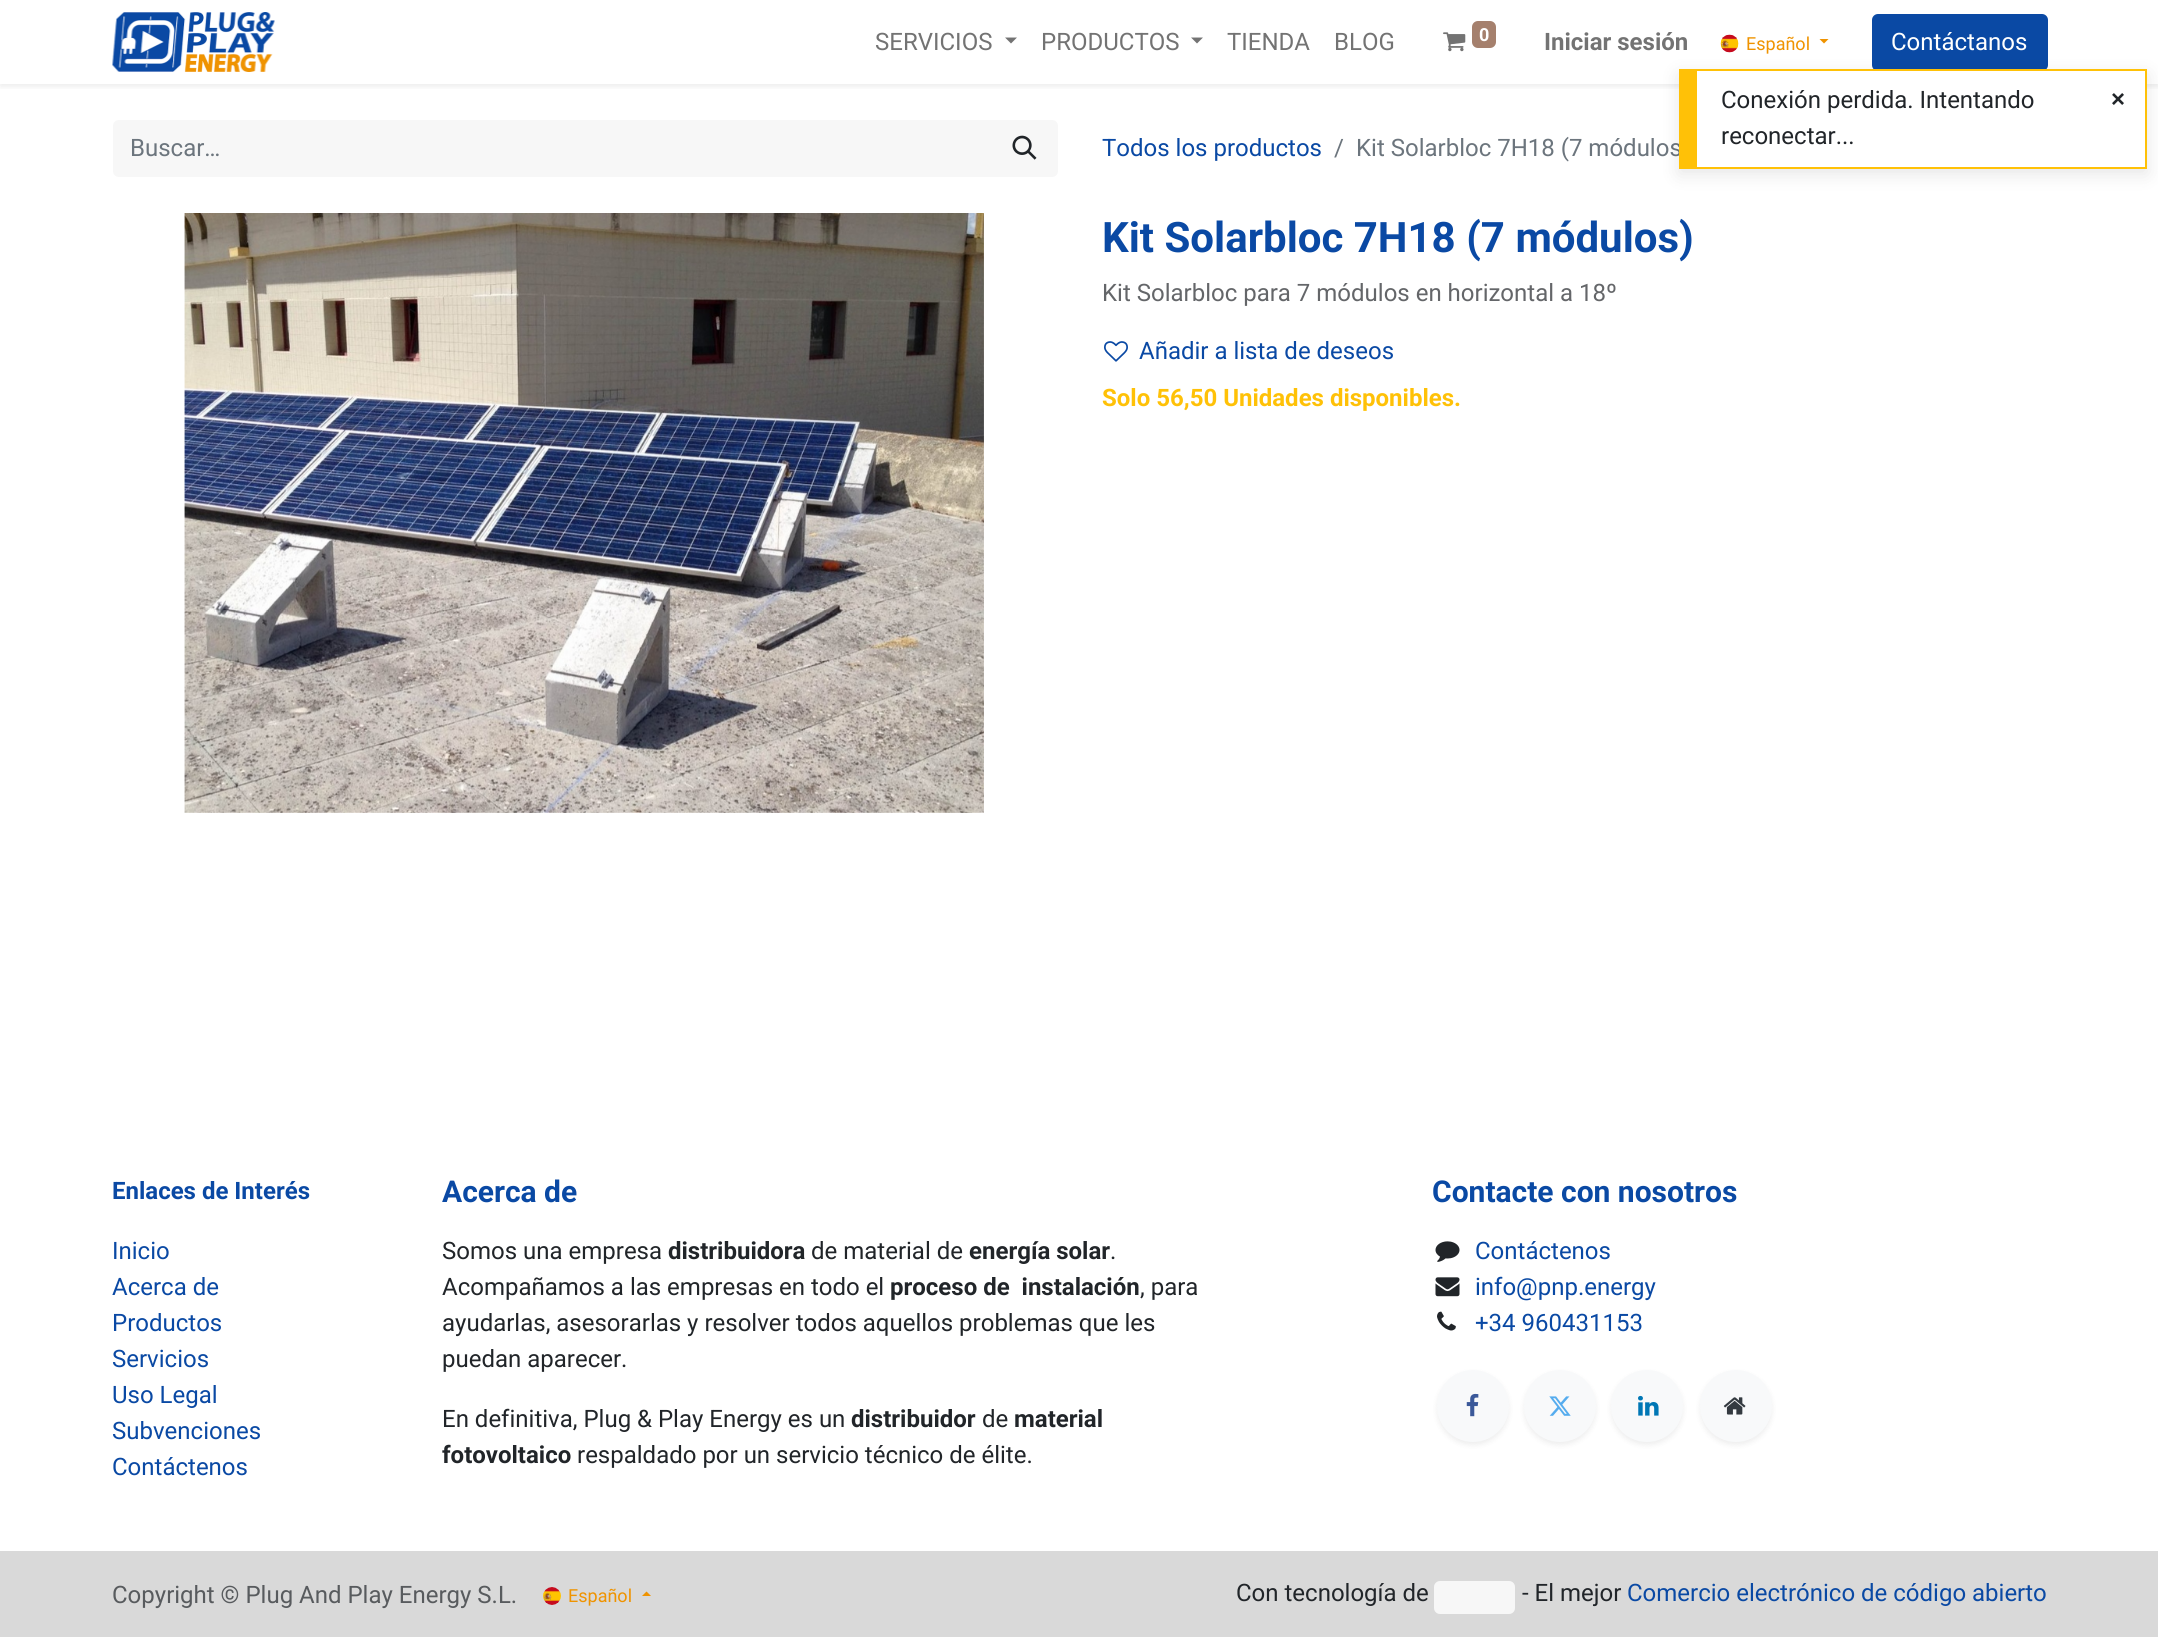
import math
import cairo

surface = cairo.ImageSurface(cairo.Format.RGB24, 2158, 1637)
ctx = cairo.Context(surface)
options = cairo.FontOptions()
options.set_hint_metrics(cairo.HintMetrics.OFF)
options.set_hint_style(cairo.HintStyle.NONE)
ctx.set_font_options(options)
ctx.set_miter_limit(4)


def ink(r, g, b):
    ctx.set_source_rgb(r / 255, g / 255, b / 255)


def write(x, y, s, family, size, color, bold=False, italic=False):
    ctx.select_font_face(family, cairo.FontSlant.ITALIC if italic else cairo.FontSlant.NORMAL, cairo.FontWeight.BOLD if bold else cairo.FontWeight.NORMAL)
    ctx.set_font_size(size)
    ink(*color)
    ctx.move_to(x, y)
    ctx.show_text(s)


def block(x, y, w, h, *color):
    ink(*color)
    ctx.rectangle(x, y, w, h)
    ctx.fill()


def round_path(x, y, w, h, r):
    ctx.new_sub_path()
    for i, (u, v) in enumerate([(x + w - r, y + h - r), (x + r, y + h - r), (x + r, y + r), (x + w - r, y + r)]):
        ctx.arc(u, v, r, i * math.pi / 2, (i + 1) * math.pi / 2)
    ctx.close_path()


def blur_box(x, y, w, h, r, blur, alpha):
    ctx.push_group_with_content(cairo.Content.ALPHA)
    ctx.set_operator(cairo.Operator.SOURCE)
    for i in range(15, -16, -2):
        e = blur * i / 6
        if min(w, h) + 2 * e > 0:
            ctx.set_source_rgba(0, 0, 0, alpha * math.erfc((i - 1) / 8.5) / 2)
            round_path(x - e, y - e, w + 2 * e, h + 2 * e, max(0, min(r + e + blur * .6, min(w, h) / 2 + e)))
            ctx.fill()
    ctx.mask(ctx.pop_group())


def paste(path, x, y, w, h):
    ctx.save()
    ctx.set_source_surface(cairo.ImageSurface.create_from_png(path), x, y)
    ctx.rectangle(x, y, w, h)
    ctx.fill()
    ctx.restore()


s1 = dict(family="Roboto", size=24, color=(115, 115, 115))
s2 = dict(family="Roboto", size=18, color=(255, 255, 255), bold=True)
s3 = dict(family="Roboto", size=24, color=(115, 115, 115), bold=True)
s4 = dict(family="Roboto", size=18, color=(239, 147, 0))
s5 = dict(family="Roboto", size=24, color=(255, 255, 255))
s6 = dict(family="Roboto", size=24, color=(108, 117, 125))
s7 = dict(family="Roboto", size=24, color=(10, 73, 164))
s8 = dict(family="Roboto", size=42, color=(10, 73, 164), bold=True)
s9 = dict(family="Roboto", size=24, color=(100, 102, 105))
s10 = dict(family="Roboto", size=24, color=(255, 193, 7), bold=True)
s11 = dict(family="Roboto", size=24, color=(10, 73, 164), bold=True)
s12 = dict(family="Roboto", size=30, color=(10, 73, 164), bold=True)
s13 = dict(family="Roboto", size=24, color=(33, 37, 41))
s14 = dict(family="Roboto", size=24, color=(33, 37, 41), bold=True)
s15 = dict(family="Roboto", size=24, color=(88, 91, 94))
s16 = dict(family="Liberation Sans", size=24, color=(33, 37, 41), bold=True)

ink(255, 255, 255)
ctx.paint()
ctx.save()
ctx.rectangle(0, 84, 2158, 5)
ctx.clip()
ink(0, 0, 0)
blur_box(0, 3, 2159, 84, 0, 3, 0.07)
ctx.restore()
paste("pic1.png", 112, 12, 163, 60)
write(875, 50, "SERVICIOS", **s1)
ctx.new_path()
ctx.move_to(1005, 37.5)
ctx.line_to(1017, 37.5)
ctx.line_to(1011, 43.5)
ctx.close_path()
ctx.fill()
write(1041, 50, "PRODUCTOS", **s1)
ctx.new_path()
ctx.move_to(1191, 37.5)
ctx.line_to(1203, 37.5)
ctx.line_to(1197, 43.5)
ctx.close_path()
ctx.fill()
write(1227, 50, "TIENDA", **s1)
write(1334, 50, "BLOG", **s1)
paste("pic2.png", 1443, 32, 23, 20)
ink(165, 128, 109)
round_path(1472, 21, 24, 27, 6)
ctx.fill()
write(1479, 41, "0", **s2)
write(1544, 50, "Iniciar sesión", **s3)
paste("pic3.png", 1720, 34, 19, 19)
write(1746, 50, "Español", **s4)
ctx.new_path()
ctx.move_to(1819.5, 39)
ctx.line_to(1828.5, 39)
ctx.line_to(1824, 43.5)
ctx.close_path()
ctx.fill()
ink(10, 73, 164)
round_path(1873, 15, 174, 55, 5)
ctx.fill_preserve()
ctx.stroke()
write(1891, 50, "Contáctanos", **s5)
ink(247, 247, 247)
ctx.new_path()
ctx.move_to(119, 120)
ctx.line_to(995, 120)
ctx.line_to(995, 177)
ctx.line_to(119, 177)
ctx.curve_to(115.5, 177, 113, 174.5, 113, 171)
ctx.line_to(113, 126)
ctx.curve_to(113, 122.5, 115.5, 120, 119, 120)
ctx.close_path()
ctx.fill()
write(130, 156, "Buscar…", **s6)
ink(247, 247, 247)
ctx.new_path()
ctx.move_to(993, 120)
ctx.line_to(1052, 120)
ctx.curve_to(1055.5, 120, 1058, 122.5, 1058, 126)
ctx.line_to(1058, 171)
ctx.curve_to(1058, 174.5, 1055.5, 177, 1052, 177)
ctx.line_to(993, 177)
ctx.close_path()
ctx.fill()
paste("pic4.png", 1012, 135, 25, 25)
write(1102, 156, "Todos los productos", **s7)
write(1334, 156, "/", **s6)
write(1356, 156, "Kit Solarbloc 7H18 (7 módulos", **s6)
paste("pic5.png", 184, 213, 800, 600)
write(1102, 252, "Kit Solarbloc 7H18 (7 módulos)", **s8)
write(1102, 301, "Kit Solarbloc para 7 módulos en horizontal a 18º", **s9)
paste("pic6.png", 1104, 341, 24, 21)
write(1139, 359, "Añadir a lista de deseos", **s7)
write(1102, 406, "Solo 56,50 Unidades disponibles.", **s10)
write(112, 1199, "Enlaces de Interés", **s11)
write(112, 1259, "Inicio", **s7)
write(112, 1295, "Acerca de", **s7)
write(112, 1331, "Productos", **s7)
write(112, 1367, "Servicios", **s7)
write(112, 1403, "Uso Legal", **s7)
write(112, 1439, "Subvenciones", **s7)
write(112, 1475, "Contáctenos", **s7)
write(442, 1202, "Acerca de", **s12)
write(442, 1259, "Somos una empresa", **s13)
write(668, 1259, "distribuidora", **s14)
write(811, 1259, "de material de", **s13)
write(969, 1259, "energía solar", **s14)
write(1110, 1259, ".", **s13)
write(442, 1295, "Acompañamos a las empresas en todo el", **s13)
write(890, 1295, "proceso de  instalación", **s14)
write(1140, 1295, ", para", **s13)
write(442, 1331, "ayudarlas, asesorarlas y resolver todos aquellos problemas que les", **s13)
write(442, 1367, "puedan aparecer.", **s13)
write(442, 1427, "En definitiva, Plug & Play Energy es un", **s13)
write(851, 1427, "distribuidor", **s14)
write(982, 1427, "de", **s13)
write(1014, 1427, "material", **s14)
write(442, 1463, "fotovoltaico", **s14)
write(577, 1463, "respaldado por un servicio técnico de élite.", **s13)
write(1432, 1202, "Contacte con nosotros", **s12)
paste("pic7.png", 1435, 1241, 25, 21)
write(1475, 1259, "Contáctenos", **s7)
paste("pic8.png", 1435, 1277, 25, 20)
write(1475, 1295, "info@pnp.energy", **s7)
paste("pic9.png", 1437, 1311, 19, 20)
write(1475, 1331, "+34 960431153", **s7)
ink(0, 0, 0)
blur_box(1437, 1373, 72, 72, 36, 3, 0.07)
ink(248, 249, 250)
ctx.arc(1473, 1406, 36, 0, 2 * math.pi)
ctx.fill()
paste("pic10.png", 1466, 1393, 13, 24)
ink(0, 0, 0)
blur_box(1524, 1373, 72, 72, 36, 3, 0.07)
ink(248, 249, 250)
ctx.arc(1560, 1406, 36, 0, 2 * math.pi)
ctx.fill()
paste("pic11.png", 1549, 1396, 22, 20)
ink(0, 0, 0)
blur_box(1611, 1373, 72, 72, 36, 3, 0.07)
ink(248, 249, 250)
ctx.arc(1647, 1406, 36, 0, 2 * math.pi)
ctx.fill()
paste("pic12.png", 1638, 1395, 21, 21)
ink(0, 0, 0)
blur_box(1700, 1373, 72, 72, 36, 3, 0.07)
ink(248, 249, 250)
ctx.arc(1736, 1406, 36, 0, 2 * math.pi)
ctx.fill()
paste("pic13.png", 1723, 1397, 23, 18)
block(0, 1551, 2158, 86, 217, 217, 217)
write(112, 1603, "Copyright © Plug And Play Energy S.L.", **s15)
paste("pic14.png", 543, 1587, 18, 18)
write(568, 1602, "Español", **s4)
ctx.new_path()
ctx.move_to(651, 1596)
ctx.line_to(642, 1596)
ctx.line_to(646.5, 1591.5)
ctx.close_path()
ctx.fill()
write(1236, 1601, "Con tecnología de", **s13)
ink(247, 247, 247)
round_path(1434, 1581, 81, 33, 6)
ctx.fill()
write(1522, 1601, "- El mejor", **s13)
write(1627, 1601, "Comercio electrónico de código abierto", **s7)
ink(0, 0, 0)
blur_box(1679, 75, 468, 99, 0, 9, 0.1)
block(1697, 71, 448, 96, 255, 255, 255)
block(1697, 69, 450, 2, 255, 193, 7)
block(2145, 69, 2, 99, 255, 193, 7)
block(1679, 167, 468, 2, 255, 193, 7)
block(1679, 69, 18, 98, 255, 193, 7)
write(1721, 108, "Conexión perdida. Intentando", **s13)
write(1721, 144, "reconectar...", **s13)
write(2111, 107, "×", **s16)
surface.write_to_png("screenshot.png")
